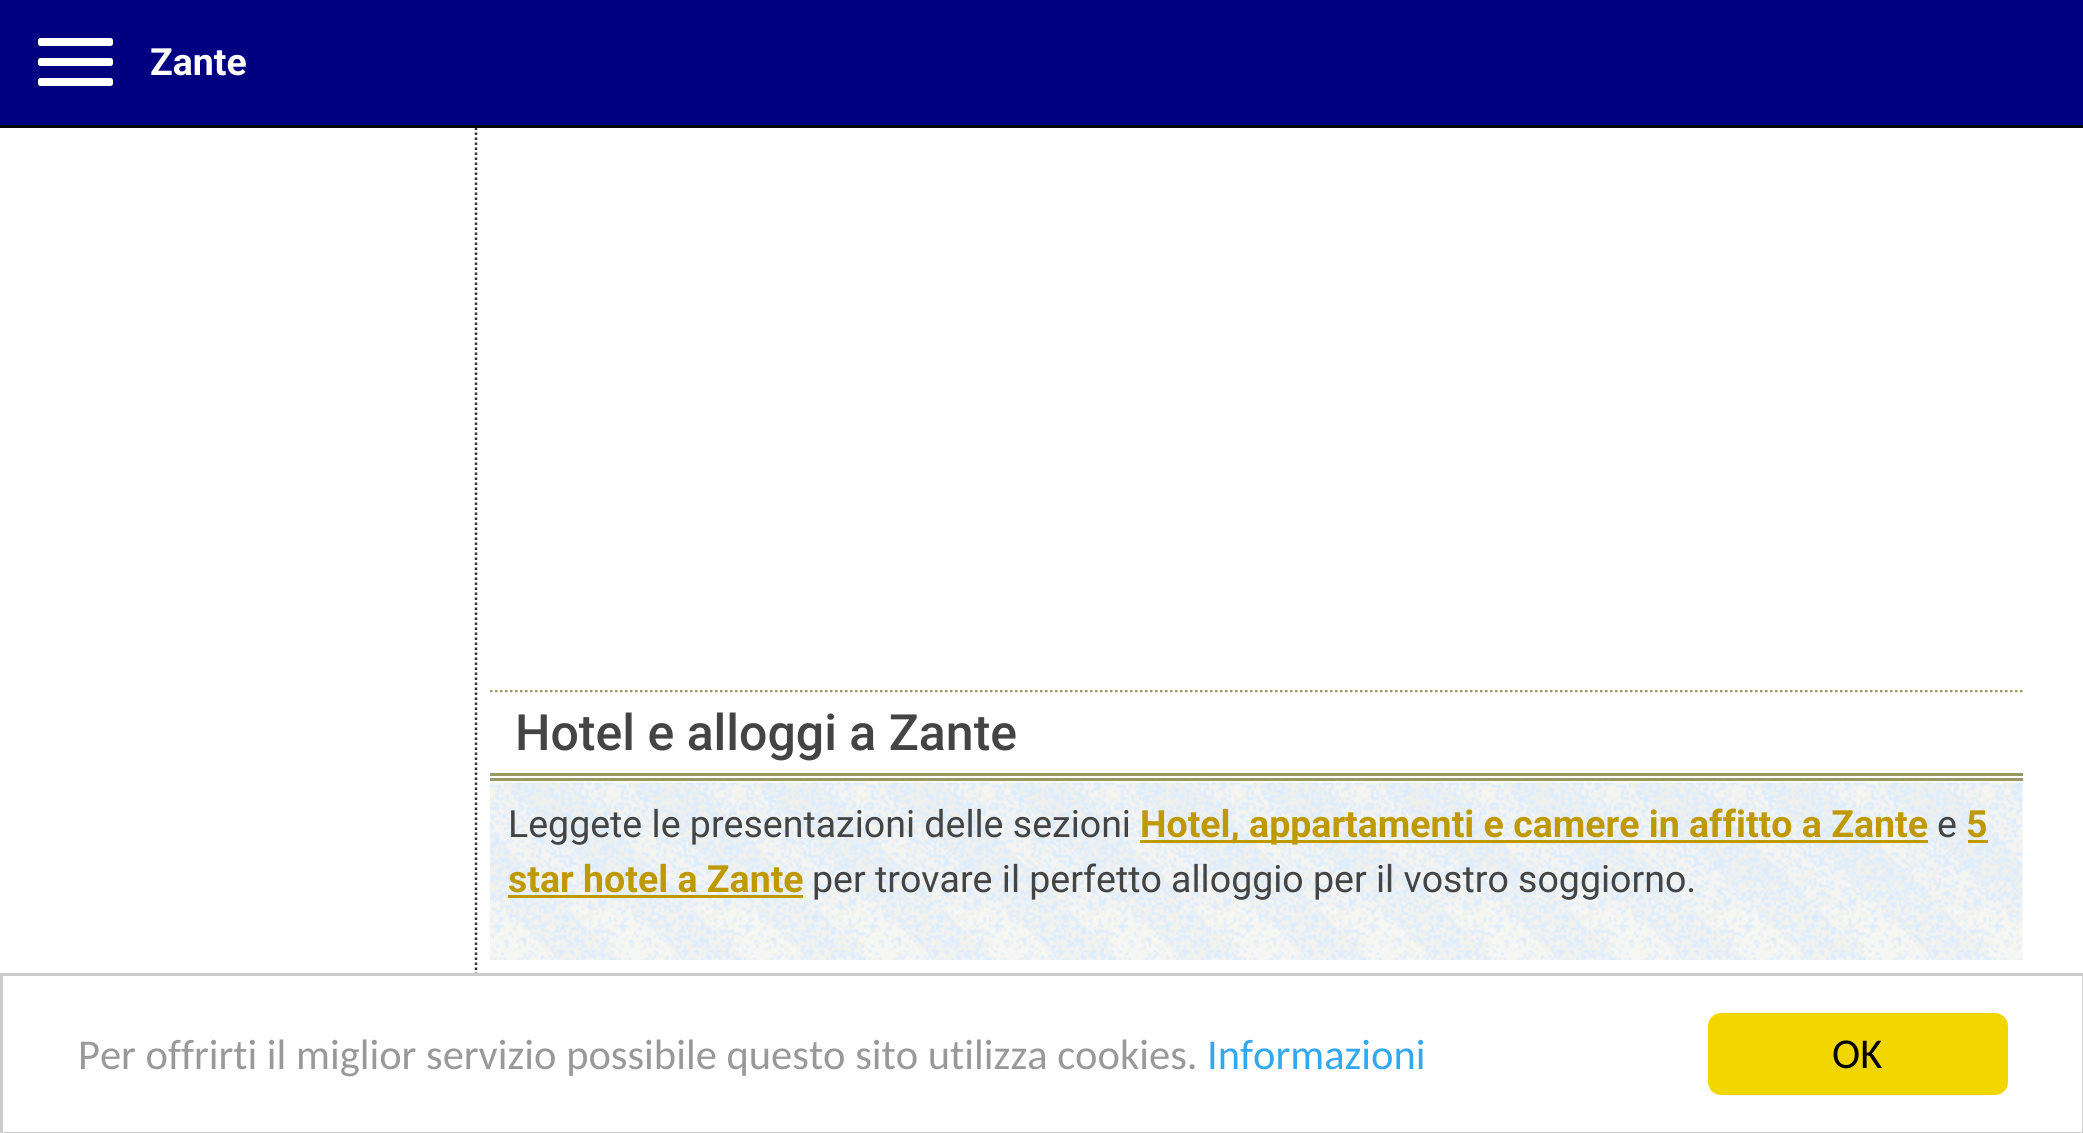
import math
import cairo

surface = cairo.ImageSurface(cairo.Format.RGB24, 2083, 1133)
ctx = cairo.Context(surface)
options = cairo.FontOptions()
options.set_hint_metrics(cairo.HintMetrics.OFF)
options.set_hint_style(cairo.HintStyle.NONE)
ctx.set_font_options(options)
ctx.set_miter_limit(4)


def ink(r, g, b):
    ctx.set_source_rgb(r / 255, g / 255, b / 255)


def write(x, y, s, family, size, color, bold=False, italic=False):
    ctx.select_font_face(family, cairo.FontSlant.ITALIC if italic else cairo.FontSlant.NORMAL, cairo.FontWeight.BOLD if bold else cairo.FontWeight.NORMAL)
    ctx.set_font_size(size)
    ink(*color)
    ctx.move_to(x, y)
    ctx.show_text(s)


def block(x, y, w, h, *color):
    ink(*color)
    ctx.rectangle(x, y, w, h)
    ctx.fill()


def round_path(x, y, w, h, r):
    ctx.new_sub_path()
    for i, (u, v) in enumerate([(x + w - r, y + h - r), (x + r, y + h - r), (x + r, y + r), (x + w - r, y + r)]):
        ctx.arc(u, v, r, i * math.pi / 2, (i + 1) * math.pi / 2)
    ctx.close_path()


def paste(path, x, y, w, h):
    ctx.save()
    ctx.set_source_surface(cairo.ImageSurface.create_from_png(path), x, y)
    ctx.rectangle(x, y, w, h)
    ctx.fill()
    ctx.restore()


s1 = dict(family="Roboto", size=37.5, color=(255, 255, 255), bold=True)
s2 = dict(family="Roboto Medium", size=50, color=(68, 68, 68))
s3 = dict(family="Roboto", size=37.5, color=(68, 68, 68))
s4 = dict(family="Roboto", size=37.5, color=(191, 153, 0), bold=True)
s5 = dict(family="Carlito", size=42.5, color=(153, 153, 153))
s6 = dict(family="Carlito", size=42.5, color=(49, 168, 240))
s7 = dict(family="Carlito", size=42.5, color=(0, 0, 0))

ink(255, 255, 255)
ctx.paint()
ctx.new_path()
ctx.move_to(476, -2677.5)
ctx.line_to(476, 997.5)
ink(51, 51, 51)
ctx.set_line_width(2.5)
ctx.set_dash([2.5, 2.5])
ctx.stroke()
block(0, 125, 2083, 3, 8, 8, 8)
block(0, 0, 2083, 125, 0, 0, 128)
ink(255, 255, 255)
round_path(38, 38, 75, 8, 2.5)
ctx.fill()
round_path(38, 58, 75, 8, 2.5)
ctx.fill()
round_path(38, 78, 75, 8, 2.5)
ctx.fill()
write(150, 75, "Zante", **s1)
ctx.save()
ctx.rectangle(490, 690, 1583, 308)
ctx.clip()
ctx.new_path()
ctx.move_to(490, 691)
ctx.line_to(2022.5, 691)
ink(153, 153, 102)
ctx.stroke()
ctx.restore()
block(490, 773, 1533, 3, 153, 153, 102)
block(490, 778, 1533, 3, 153, 153, 102)
write(515, 750, "Hotel e alloggi a Zante", **s2)
paste("pic1.png", 490, 782, 1533, 178)
write(508, 837, "Leggete le presentazioni delle sezioni", **s3)
block(1140, 840, 788, 3, 191, 153, 0)
write(1140, 837, "Hotel, appartamenti e camere in affitto a Zante", **s4)
write(1937, 837, "e", **s3)
write(1966, 837, "5", **s4)
block(1968, 840, 20, 3, 191, 153, 0)
write(508, 892, "star hotel a Zante", **s4)
block(508, 895, 295, 3, 191, 153, 0)
write(812, 892, "per trovare il perfetto alloggio per il vostro soggiorno.", **s3)
block(474, 977, 4, 18, 255, 255, 255)
ctx.rectangle(1.5, 974.5, 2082, 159)
ink(204, 204, 204)
ctx.set_line_width(3)
ctx.set_dash([])
ctx.stroke()
write(78, 1069, "Per offrirti il miglior servizio possibile questo sito utilizza cookies.", **s5)
write(1207, 1069, "Informazioni", **s6)
ink(241, 214, 0)
round_path(1708, 1013, 300, 82, 13)
ctx.fill()
write(1832, 1068, "OK", **s7)
surface.write_to_png("screenshot.png")
